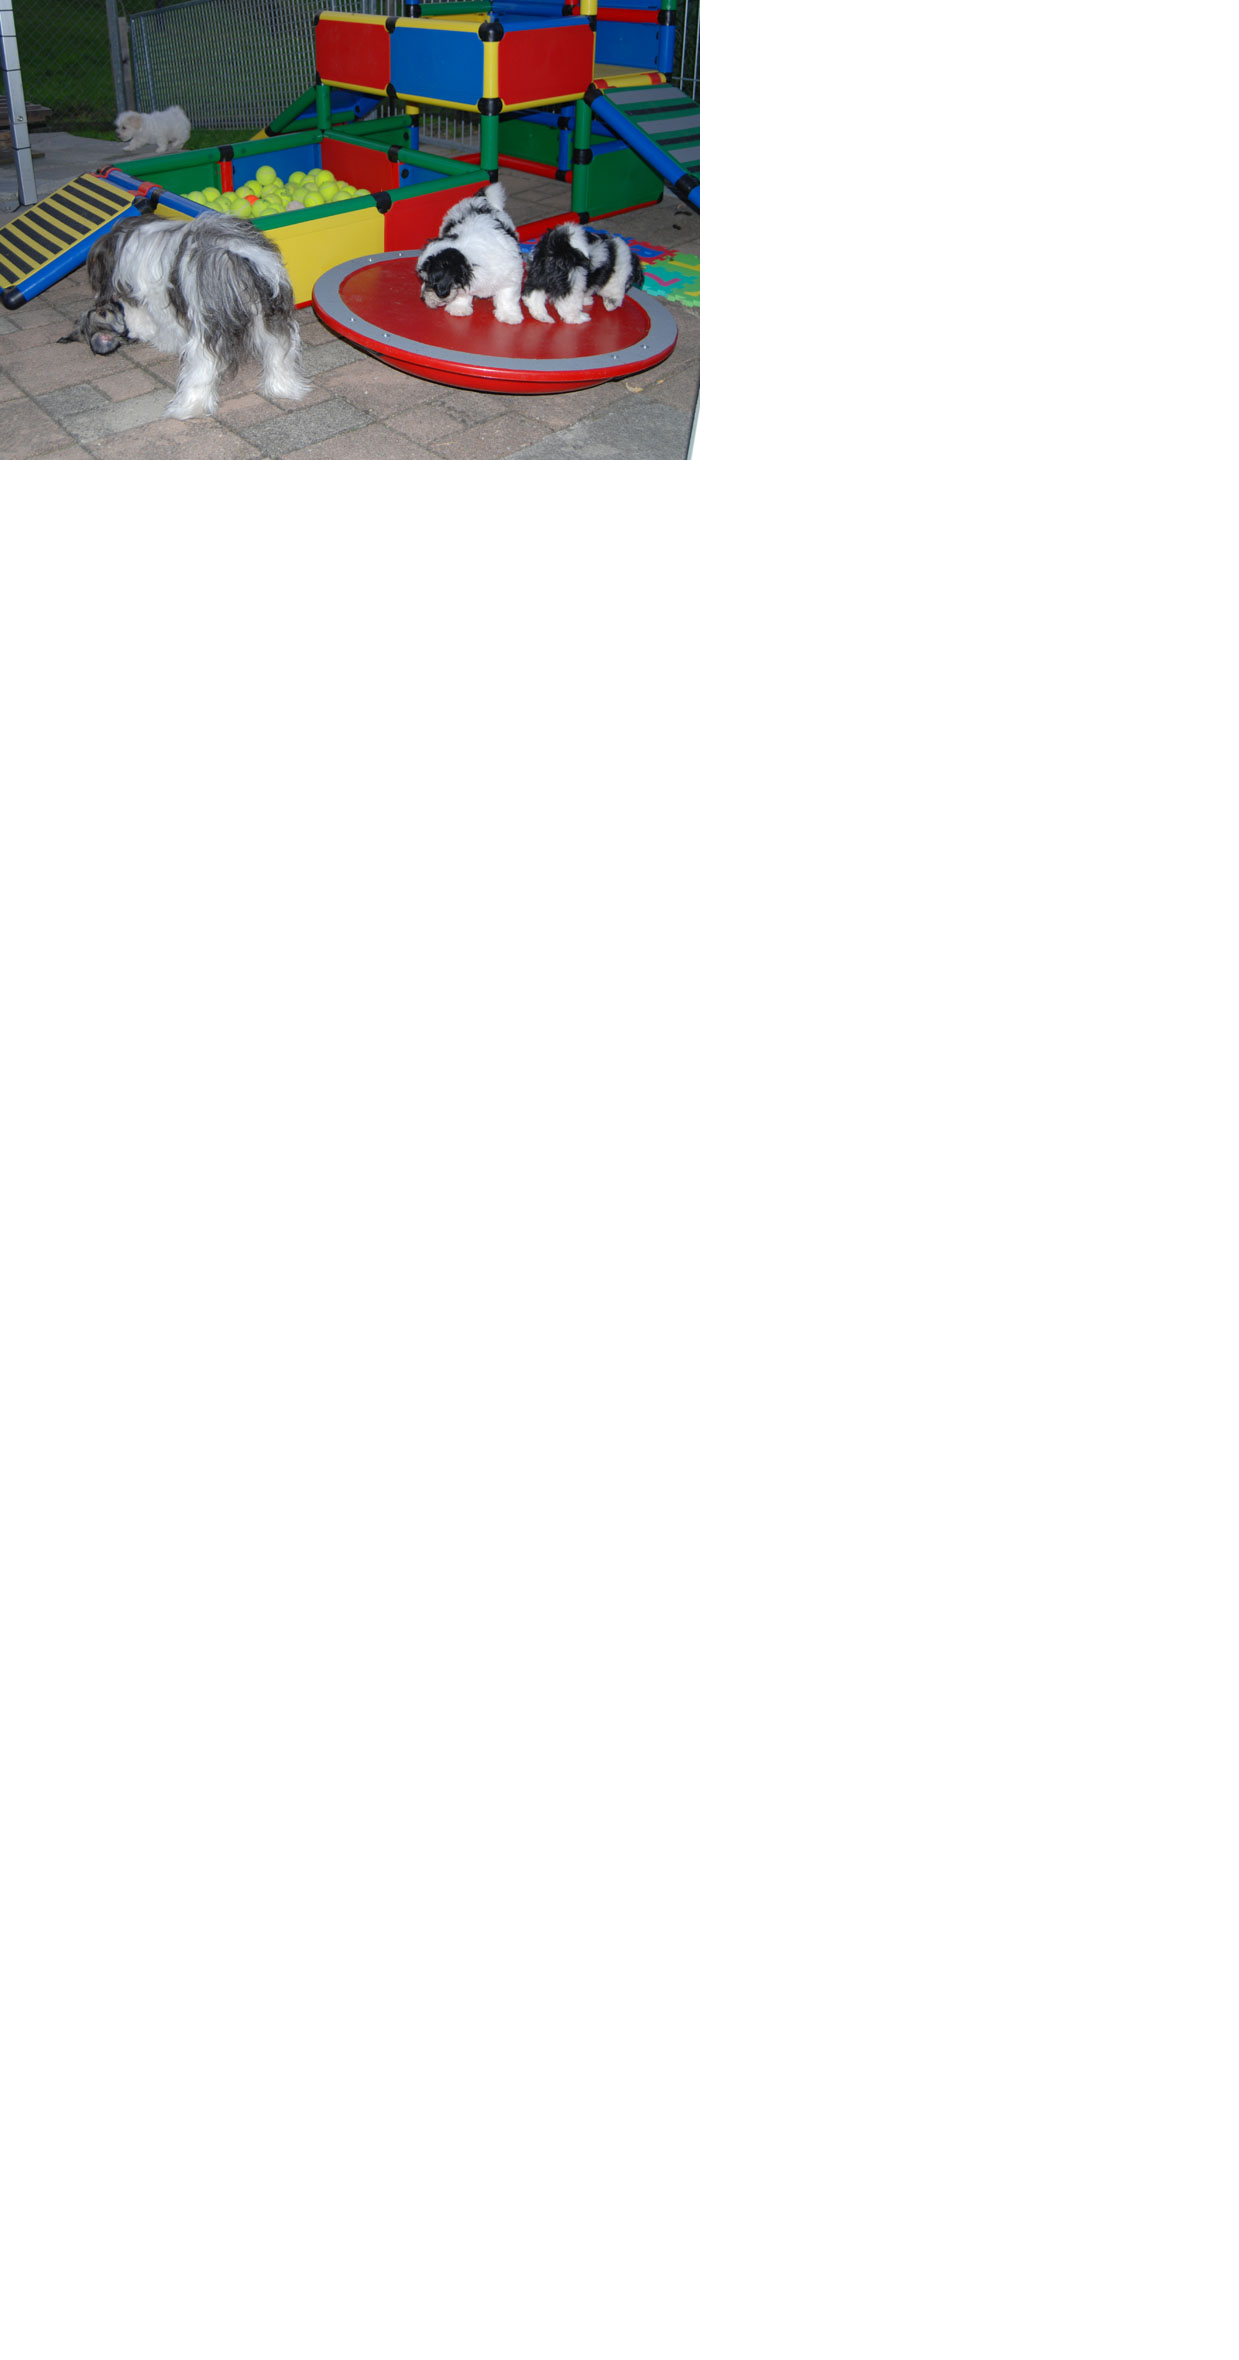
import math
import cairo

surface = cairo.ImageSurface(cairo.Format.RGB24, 1239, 2360)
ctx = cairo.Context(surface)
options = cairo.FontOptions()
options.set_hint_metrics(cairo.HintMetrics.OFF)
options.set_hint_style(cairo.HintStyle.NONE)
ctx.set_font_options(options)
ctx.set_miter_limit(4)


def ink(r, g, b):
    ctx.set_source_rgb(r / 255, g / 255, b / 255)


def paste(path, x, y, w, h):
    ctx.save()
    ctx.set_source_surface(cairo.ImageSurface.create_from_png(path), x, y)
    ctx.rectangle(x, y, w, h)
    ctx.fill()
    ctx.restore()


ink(255, 255, 255)
ctx.paint()
paste("pic1.png", 0, 0, 700, 460)
surface.write_to_png("screenshot.png")
